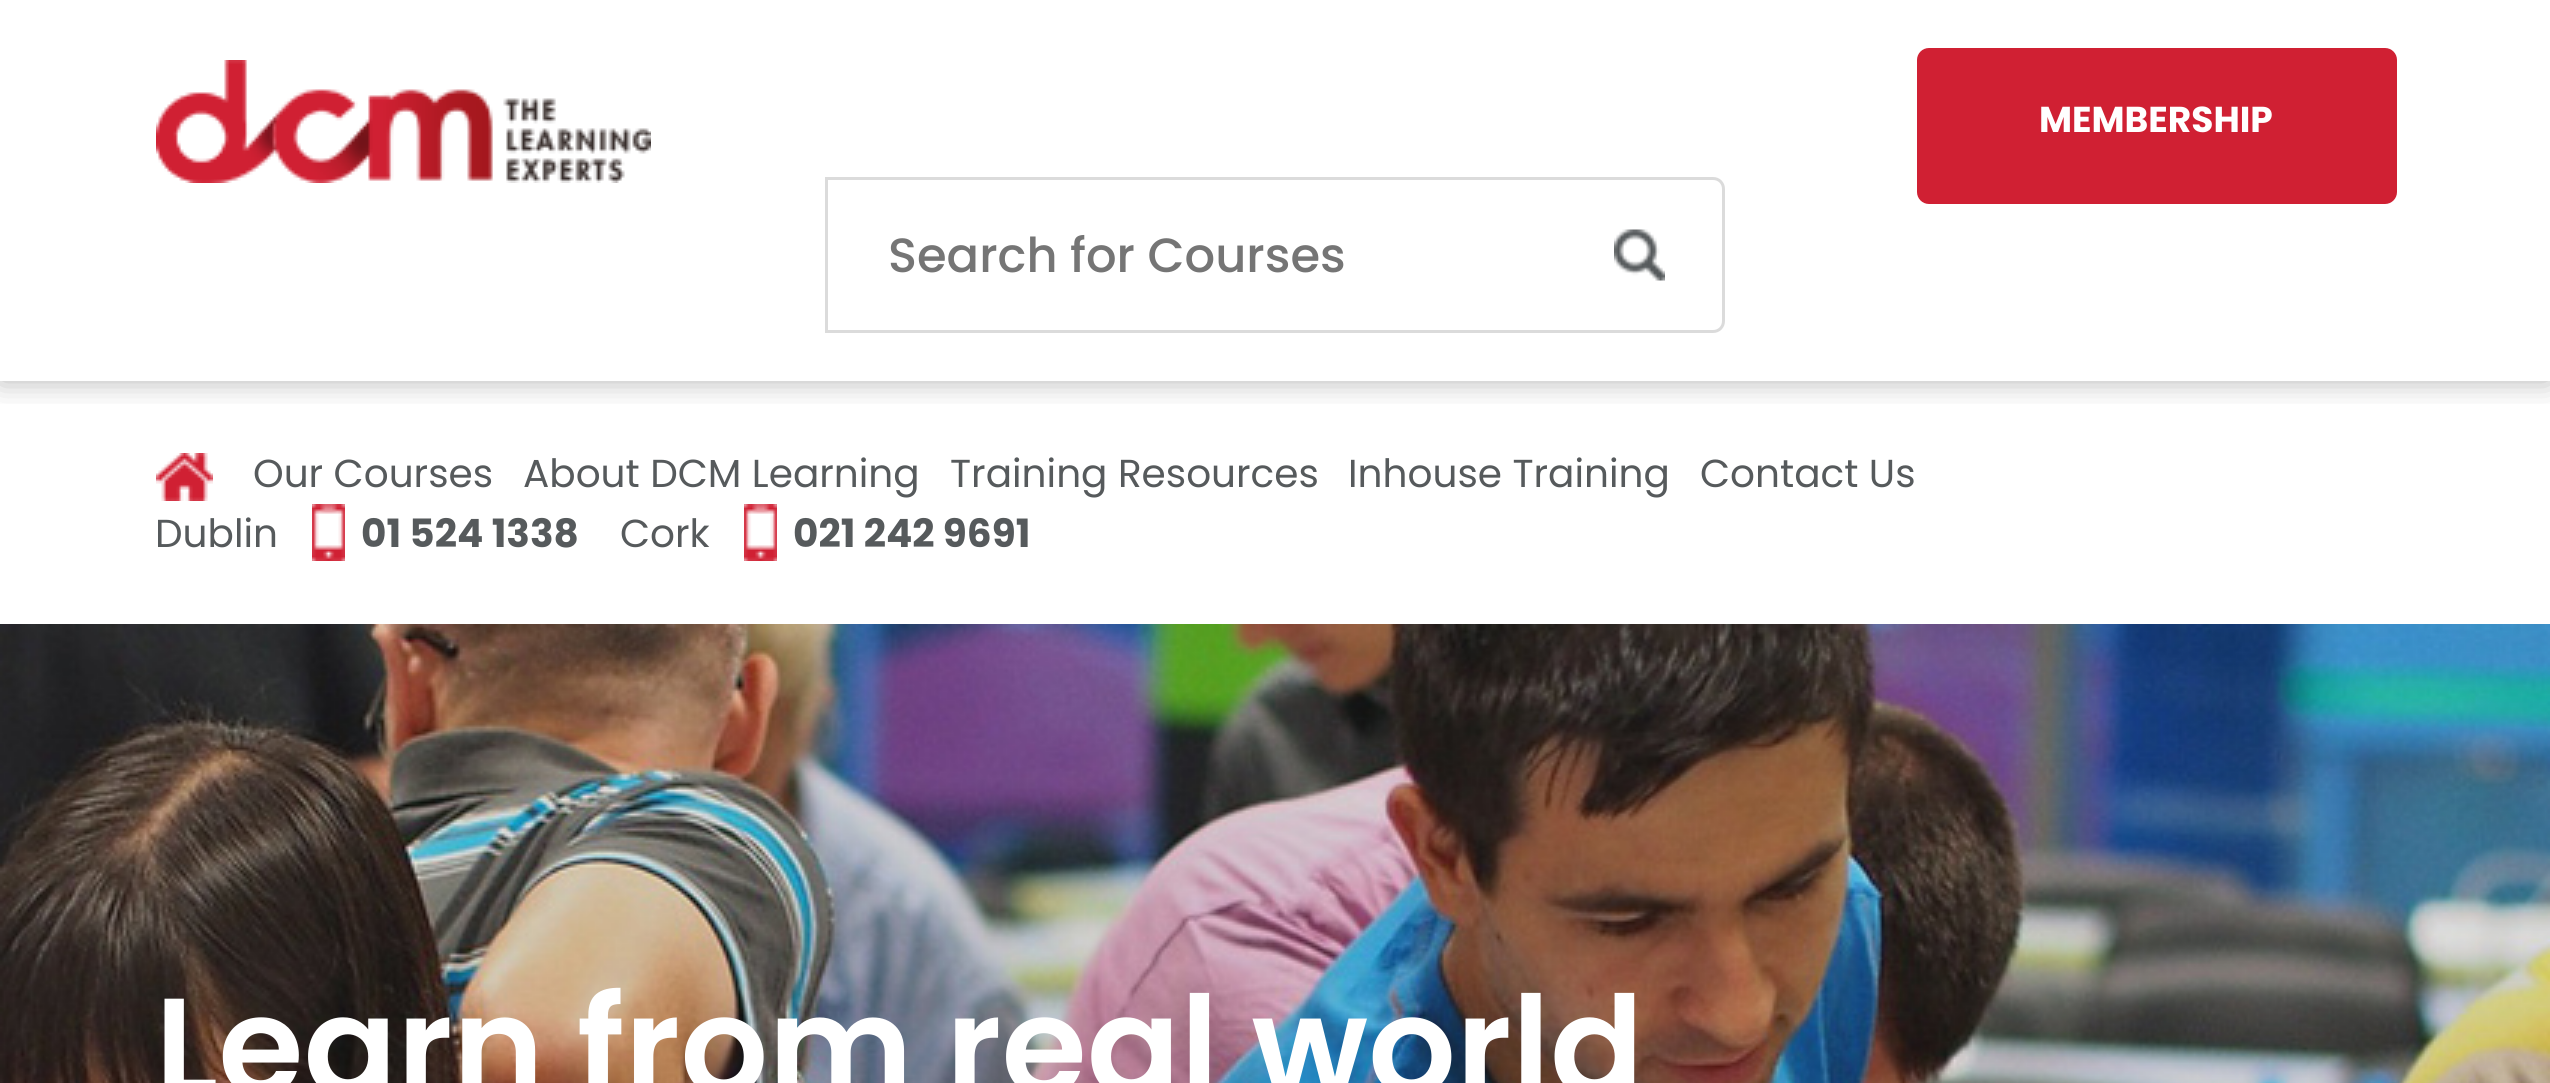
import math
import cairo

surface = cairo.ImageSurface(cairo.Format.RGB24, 2550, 1083)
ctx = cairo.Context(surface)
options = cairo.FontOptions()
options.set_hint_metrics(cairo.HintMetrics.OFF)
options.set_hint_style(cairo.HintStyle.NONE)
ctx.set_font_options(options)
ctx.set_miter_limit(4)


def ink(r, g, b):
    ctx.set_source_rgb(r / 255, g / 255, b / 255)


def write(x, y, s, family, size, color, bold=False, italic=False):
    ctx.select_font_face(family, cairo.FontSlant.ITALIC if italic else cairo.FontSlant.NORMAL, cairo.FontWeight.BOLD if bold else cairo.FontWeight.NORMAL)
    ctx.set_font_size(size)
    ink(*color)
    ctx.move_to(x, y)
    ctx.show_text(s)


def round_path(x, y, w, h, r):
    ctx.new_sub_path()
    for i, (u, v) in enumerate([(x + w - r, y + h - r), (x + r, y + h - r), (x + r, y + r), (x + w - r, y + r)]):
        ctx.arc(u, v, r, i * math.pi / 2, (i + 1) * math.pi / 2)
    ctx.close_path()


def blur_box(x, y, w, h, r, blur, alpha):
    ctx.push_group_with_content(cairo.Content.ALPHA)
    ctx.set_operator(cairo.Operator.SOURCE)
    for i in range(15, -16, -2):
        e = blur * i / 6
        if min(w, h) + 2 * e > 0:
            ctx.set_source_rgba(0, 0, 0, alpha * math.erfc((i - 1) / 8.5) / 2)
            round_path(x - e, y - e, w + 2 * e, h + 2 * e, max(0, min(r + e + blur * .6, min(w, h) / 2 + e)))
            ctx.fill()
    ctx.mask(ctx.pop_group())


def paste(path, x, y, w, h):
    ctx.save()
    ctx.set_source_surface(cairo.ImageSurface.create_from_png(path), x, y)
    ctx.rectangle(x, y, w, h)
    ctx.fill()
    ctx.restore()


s1 = dict(family="Poppins", size=36, color=(255, 255, 255), bold=True)
s2 = dict(family="Poppins Medium", size=48, color=(117, 117, 117))
s3 = dict(family="Poppins", size=39, color=(86, 90, 92))
s4 = dict(family="Poppins", size=39, color=(86, 90, 92), bold=True)
s5 = dict(family="Poppins SemiBold", size=138, color=(255, 255, 255))

ink(255, 255, 255)
ctx.paint()
ctx.save()
ctx.rectangle(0, 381, 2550, 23)
ctx.clip()
ink(1, 1, 1)
blur_box(0, 0, 2550, 381, 0, 15, 0.3)
ctx.restore()
paste("pic1.png", 156, 60, 495, 123)
ink(208, 32, 51)
round_path(1917, 48, 480, 156, 12)
ctx.fill()
write(2039, 132, "MEMBERSHIP", **s1)
ctx.new_path()
ctx.move_to(826.5, 178.5)
ctx.line_to(1713, 178.5)
ctx.curve_to(1719, 178.5, 1723.5, 183, 1723.5, 189)
ctx.line_to(1723.5, 321)
ctx.curve_to(1723.5, 327, 1719, 331.5, 1713, 331.5)
ctx.line_to(826.5, 331.5)
ctx.close_path()
ink(219, 219, 219)
ctx.set_line_width(3)
ctx.stroke()
write(888, 272, "Search for Courses", **s2)
paste("pic2.png", 1614, 229, 51, 52)
paste("pic3.png", 156, 453, 57, 48)
write(253, 487, "Our Courses", **s3)
write(523, 487, "About DCM Learning", **s3)
write(950, 487, "Training Resources", **s3)
write(1348, 487, "Inhouse Training", **s3)
write(1700, 487, "Contact Us", **s3)
write(155, 547, "Dublin", **s3)
paste("pic4.png", 312, 504, 33, 57)
write(361, 547, "01 524 1338", **s4)
write(620, 547, "Cork", **s3)
paste("pic4.png", 744, 504, 33, 57)
write(793, 547, "021 242 9691", **s4)
paste("pic5.png", 0, 624, 2550, 459)
write(155, 1095, "Learn from real world", **s5)
surface.write_to_png("screenshot.png")
